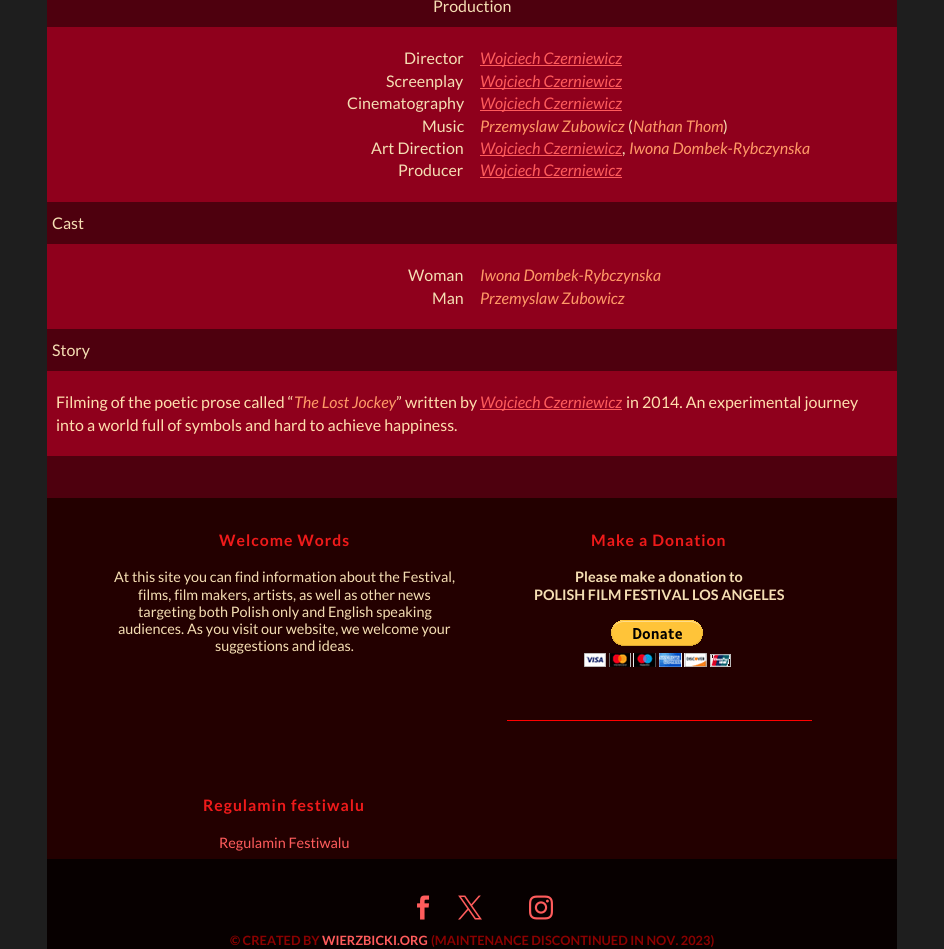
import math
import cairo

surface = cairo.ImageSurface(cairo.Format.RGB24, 944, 949)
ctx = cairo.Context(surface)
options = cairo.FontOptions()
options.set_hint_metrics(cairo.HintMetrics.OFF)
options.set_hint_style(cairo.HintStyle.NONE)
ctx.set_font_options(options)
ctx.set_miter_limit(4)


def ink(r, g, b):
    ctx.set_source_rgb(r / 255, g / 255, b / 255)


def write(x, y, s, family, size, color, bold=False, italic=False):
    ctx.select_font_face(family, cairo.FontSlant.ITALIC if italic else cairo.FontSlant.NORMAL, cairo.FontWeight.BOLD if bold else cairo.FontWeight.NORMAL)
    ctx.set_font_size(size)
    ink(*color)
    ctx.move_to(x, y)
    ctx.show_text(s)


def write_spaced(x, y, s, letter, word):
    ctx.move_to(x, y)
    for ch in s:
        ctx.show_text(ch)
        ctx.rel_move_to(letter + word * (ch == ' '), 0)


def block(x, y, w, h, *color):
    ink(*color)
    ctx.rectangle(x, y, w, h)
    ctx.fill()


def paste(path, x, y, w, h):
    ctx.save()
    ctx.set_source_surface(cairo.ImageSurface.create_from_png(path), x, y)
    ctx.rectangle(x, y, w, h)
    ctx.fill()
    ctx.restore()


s1 = dict(family="Lato", size=16, color=(245, 222, 179))
s2 = dict(family="Lato", size=16, color=(255, 92, 92), italic=True)
s3 = dict(family="Lato", size=16, color=(255, 153, 102), italic=True)
s4 = dict(family="Lato", size=16, color=(255, 222, 173))
s5 = dict(family="Lato", size=14.4, color=(245, 222, 179))
s6 = dict(family="Lato", size=14.4, color=(245, 222, 179), bold=True)
s7 = dict(family="Lato", size=14.4, color=(255, 92, 92))
s8 = dict(family="Lato", size=12.8, color=(139, 0, 0), bold=True)
s9 = dict(family="Lato", size=12.8, color=(255, 92, 92), bold=True)

ink(30, 30, 30)
ctx.paint()
block(47, 0, 850, 371, 78, 0, 14)
write(433, 12, "Production", **s1)
block(47, 27, 850, 175, 143, 0, 28)
write(404, 64, "Director", **s1)
block(480, 65, 142, 1, 255, 92, 92)
write(480, 64, "Wojciech Czerniewicz", **s2)
write(386, 87, "Screenplay", **s1)
block(480, 88, 142, 1, 255, 92, 92)
write(480, 87, "Wojciech Czerniewicz", **s2)
write(347, 109, "Cinematography", **s1)
block(480, 110, 142, 1, 255, 92, 92)
write(480, 109, "Wojciech Czerniewicz", **s2)
write(422, 132, "Music", **s1)
write(480, 132, "Przemyslaw Zubowicz", **s3)
write(628, 132, "(", **s1)
write(633, 132, "Nathan Thom", **s3)
write(723, 132, ")", **s1)
write(371, 154, "Art Direction", **s1)
block(480, 155, 142, 1, 255, 92, 92)
write(480, 154, "Wojciech Czerniewicz", **s2)
write(622, 154, ",", **s1)
write(629, 154, "Iwona Dombek-Rybczynska", **s3)
write(398, 176, "Producer", **s1)
block(480, 177, 142, 1, 255, 92, 92)
write(480, 176, "Wojciech Czerniewicz", **s2)
write(52, 229, "Cast", **s1)
block(47, 244, 850, 85, 143, 0, 28)
write(408, 281, "Woman", **s1)
write(480, 281, "Iwona Dombek-Rybczynska", **s3)
write(432, 304, "Man", **s1)
write(480, 304, "Przemyslaw Zubowicz", **s3)
write(52, 356, "Story", **s1)
block(47, 371, 850, 85, 143, 0, 28)
write(56, 408, "Filming of the poetic prose called “", **s4)
write(294, 408, "The Lost Jockey", **s3)
write(396, 408, "” written by", **s4)
block(480, 409, 142, 1, 255, 92, 92)
write(480, 408, "Wojciech Czerniewicz", **s2)
write(626, 408, "in 2014. An experimental journey", **s4)
write(56, 431, "into a world full of symbols and hard to achieve happiness.", **s4)
block(47, 456, 850, 42, 78, 0, 14)
block(47, 498, 850, 361, 35, 0, 0)
ctx.select_font_face("Lato", cairo.FontSlant.NORMAL, cairo.FontWeight.BOLD)
ctx.set_font_size(15.75)
ink(239, 26, 26)
write_spaced(219, 546, "Welcome Words", 1, 0)
write(114, 582, "At this site you can find information about the Festival,", **s5)
write(138, 600, "films, film makers, artists, as well as other news", **s5)
write(138, 617, "targeting both Polish only and English speaking", **s5)
write(118, 634, "audiences. As you visit our website, we welcome your", **s5)
write(215, 651, "suggestions and ideas.", **s5)
ctx.select_font_face("Lato", cairo.FontSlant.NORMAL, cairo.FontWeight.BOLD)
ctx.set_font_size(15.75)
ink(239, 26, 26)
write_spaced(591, 546, "Make a Donation", 1, 0)
write(575, 582, "Please make a donation to", **s6)
write(534, 600, "POLISH FILM FESTIVAL LOS ANGELES", **s6)
paste("pic1.png", 584, 620, 147, 47)
block(507, 720, 305, 1, 255, 0, 0)
ctx.set_font_size(15.75)
ink(239, 26, 26)
write_spaced(203, 811, "Regulamin festiwalu", 1, 0)
write(219, 848, "Regulamin Festiwalu", **s7)
block(47, 859, 850, 90, 7, 0, 0)
paste("pic2.png", 417, 895, 13, 25)
paste("pic3.png", 458, 895, 24, 25)
paste("pic4.png", 529, 895, 24, 25)
write(230, 945, "© CREATED BY", **s8)
write(322, 945, "WIERZBICKI.ORG", **s9)
write(431, 945, "(MAINTENANCE DISCONTINUED IN NOV. 2023)", **s8)
surface.write_to_png("screenshot.png")
